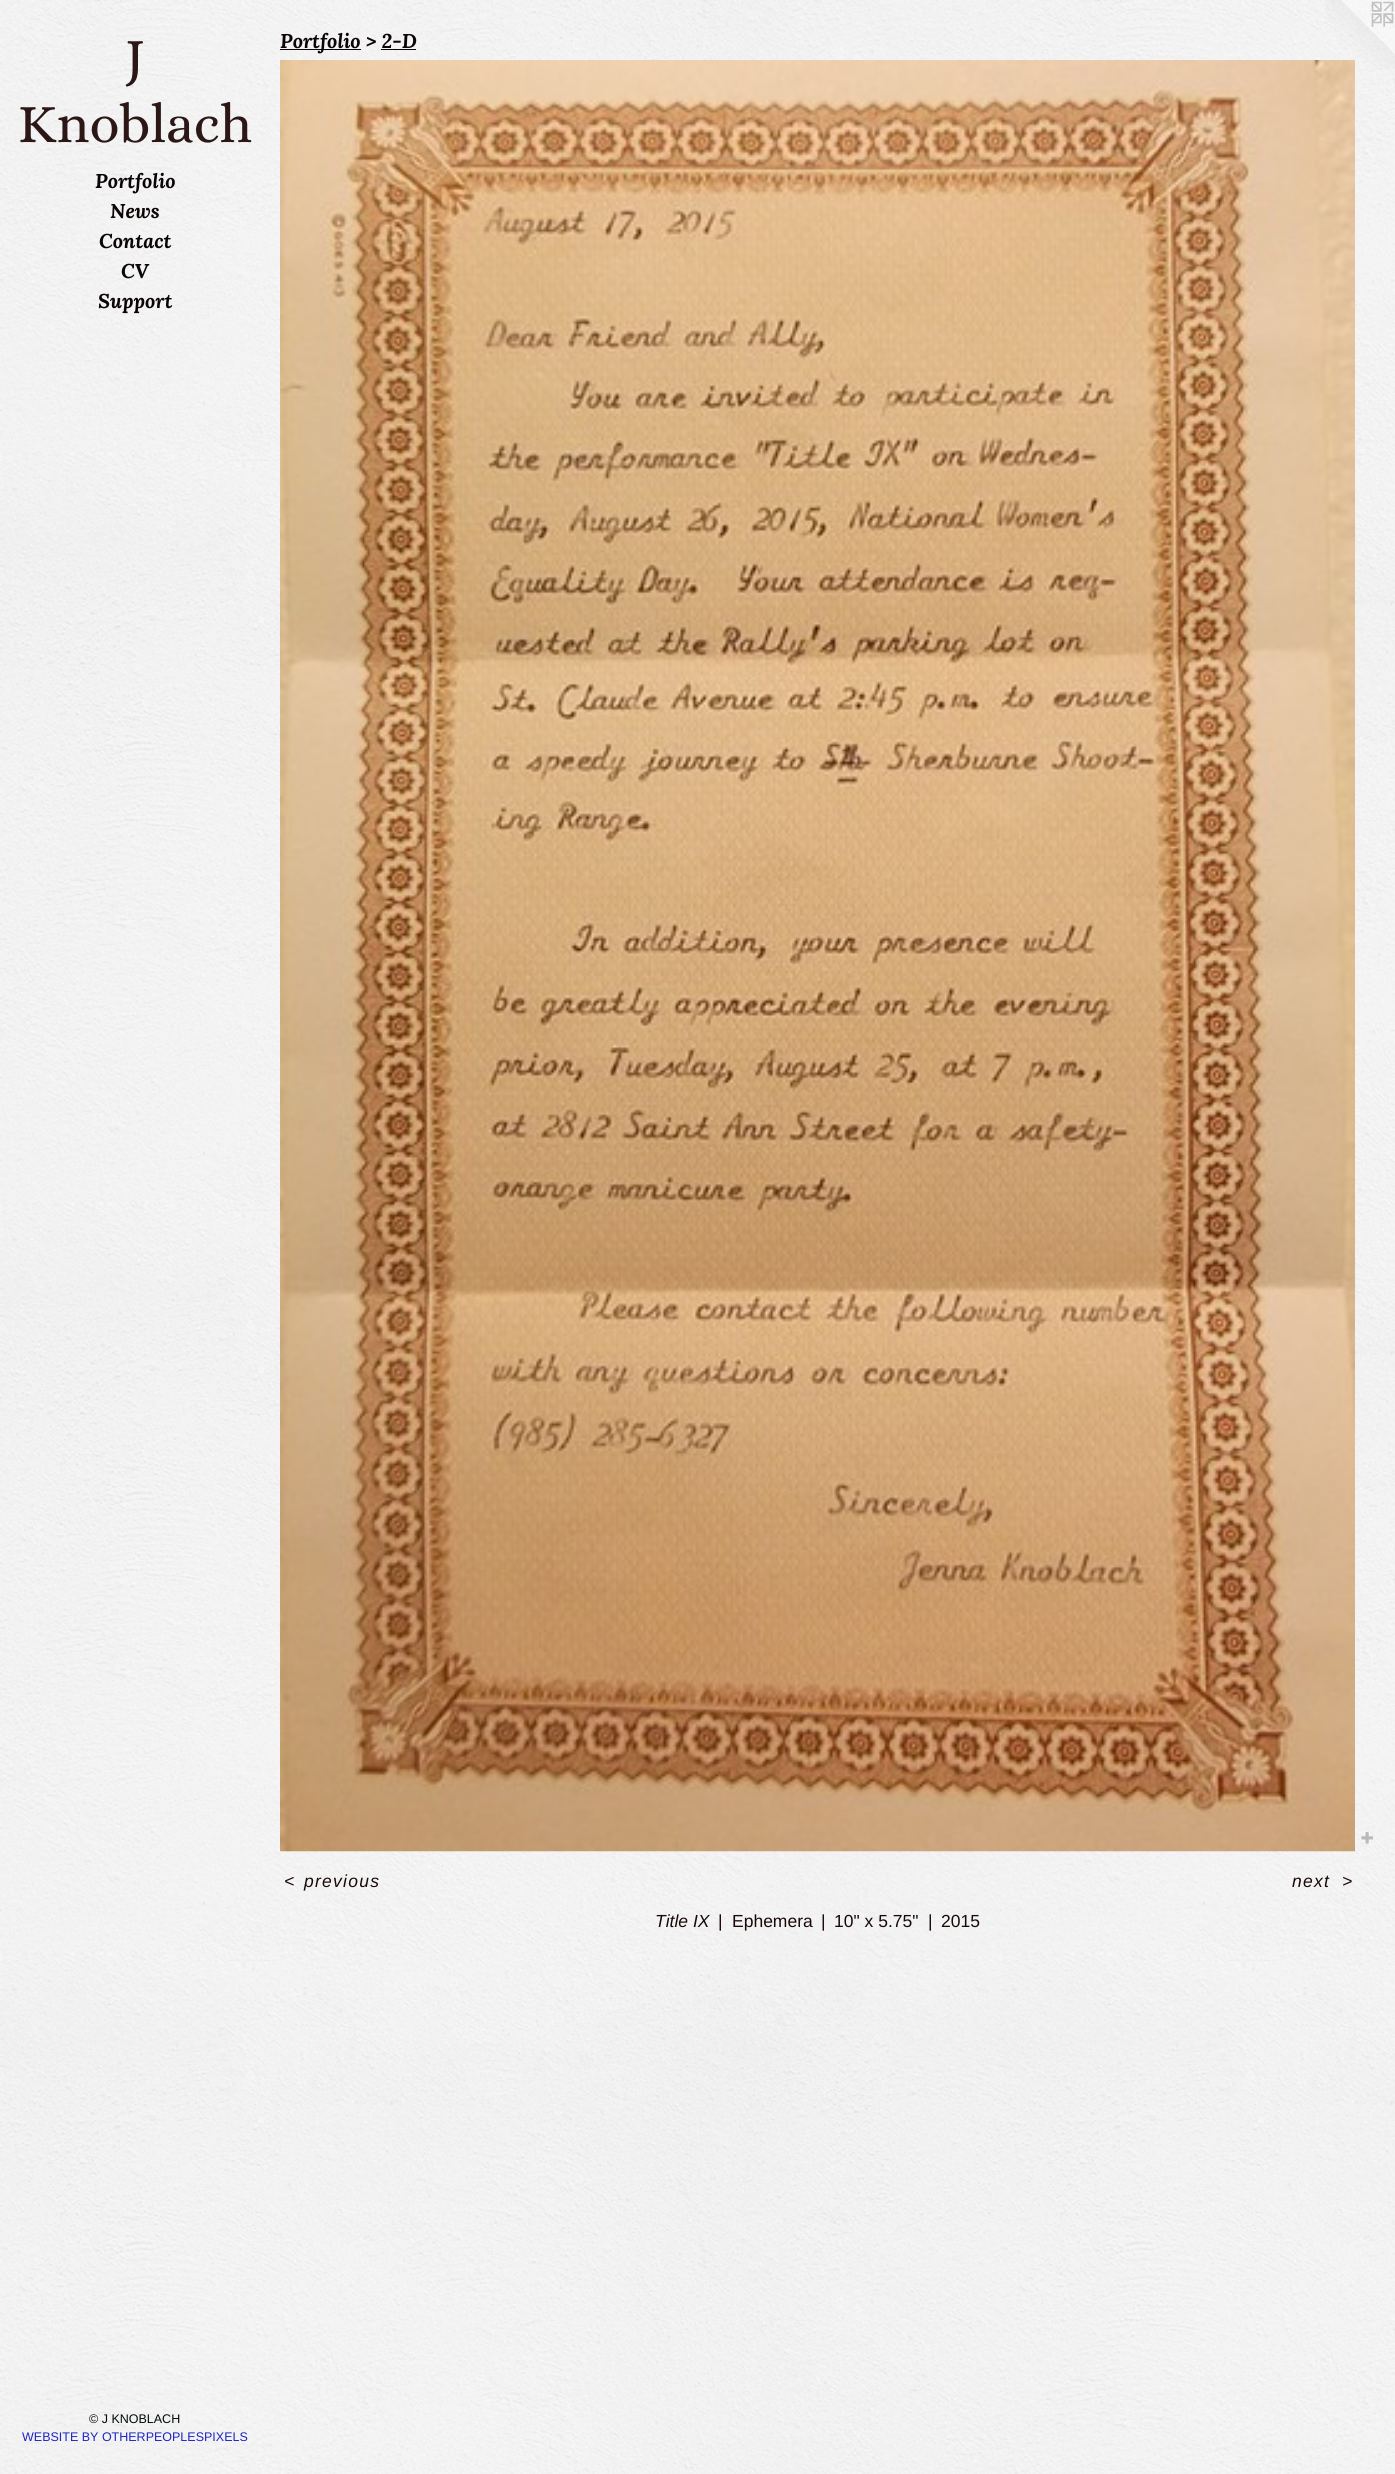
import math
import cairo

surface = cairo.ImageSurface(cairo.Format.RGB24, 1395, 2474)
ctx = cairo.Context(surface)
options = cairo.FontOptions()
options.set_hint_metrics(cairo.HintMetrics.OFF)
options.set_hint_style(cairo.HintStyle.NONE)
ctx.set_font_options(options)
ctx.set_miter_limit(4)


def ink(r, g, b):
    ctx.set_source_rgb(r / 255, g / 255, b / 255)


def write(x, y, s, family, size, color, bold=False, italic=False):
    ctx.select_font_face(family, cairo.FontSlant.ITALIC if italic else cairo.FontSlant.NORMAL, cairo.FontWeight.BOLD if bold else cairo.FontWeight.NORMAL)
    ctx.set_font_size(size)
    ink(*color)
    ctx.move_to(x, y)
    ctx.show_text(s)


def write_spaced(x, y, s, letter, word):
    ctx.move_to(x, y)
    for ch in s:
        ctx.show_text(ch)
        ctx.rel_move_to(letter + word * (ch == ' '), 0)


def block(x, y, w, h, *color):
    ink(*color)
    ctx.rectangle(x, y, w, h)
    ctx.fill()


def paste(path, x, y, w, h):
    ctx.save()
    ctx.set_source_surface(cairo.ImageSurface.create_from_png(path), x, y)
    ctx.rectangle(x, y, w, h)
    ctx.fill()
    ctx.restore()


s1 = dict(family="Alice", size=55, color=(44, 22, 22))
s2 = dict(family="Lora", size=20, color=(11, 6, 5), bold=True, italic=True)
s3 = dict(family="Liberation Sans", size=12.5, color=(4, 11, 11))
s4 = dict(family="Liberation Sans", size=12.5, color=(29, 38, 191))
s5 = dict(family="Liberation Sans", size=17.5, color=(27, 9, 9), italic=True)
s6 = dict(family="Liberation Sans", size=17.5, color=(27, 9, 9))

ink(255, 255, 255)
ctx.paint()
paste("pic1.png", 0, 0, 1395, 2474)
write(125, 76, "J", **s1)
write(18, 142, "Knoblach", **s1)
write(95, 188, "Portfolio", **s2)
write(110, 218, "News", **s2)
write(99, 248, "Contact", **s2)
write(121, 278, "CV", **s2)
write(98, 308, "Support", **s2)
write(89, 2423, "© J KNOBLACH", **s3)
write(22, 2441, "WEBSITE BY OTHERPEOPLESPIXELS", **s4)
block(280, 49, 81, 1, 11, 6, 5)
write(280, 48, "Portfolio > 2-D", **s2)
block(381, 49, 35, 1, 11, 6, 5)
paste("pic4.png", 1325, 0, 70, 70)
paste("pic2.png", 280, 60, 1075, 1792)
paste("pic3.png", 1361, 1832, 12, 12)
ctx.select_font_face("Liberation Sans", cairo.FontSlant.ITALIC)
ctx.set_font_size(17.5)
ink(27, 9, 9)
write_spaced(284, 1887, "<", 1.25, 0)
write_spaced(304, 1887, "previous", 1.25, 0)
write_spaced(1292, 1887, "next", 1.25, 0)
write_spaced(1342, 1887, ">", 1.25, 0)
write(655, 1927, "Title IX", **s5)
write(718, 1927, "|", **s6)
write(732, 1927, "Ephemera", **s6)
write(821, 1927, "|", **s6)
write(834, 1927, "10\" x 5.75\"", **s6)
write(928, 1927, "|", **s6)
write(941, 1927, "2015", **s6)
surface.write_to_png("screenshot.png")
